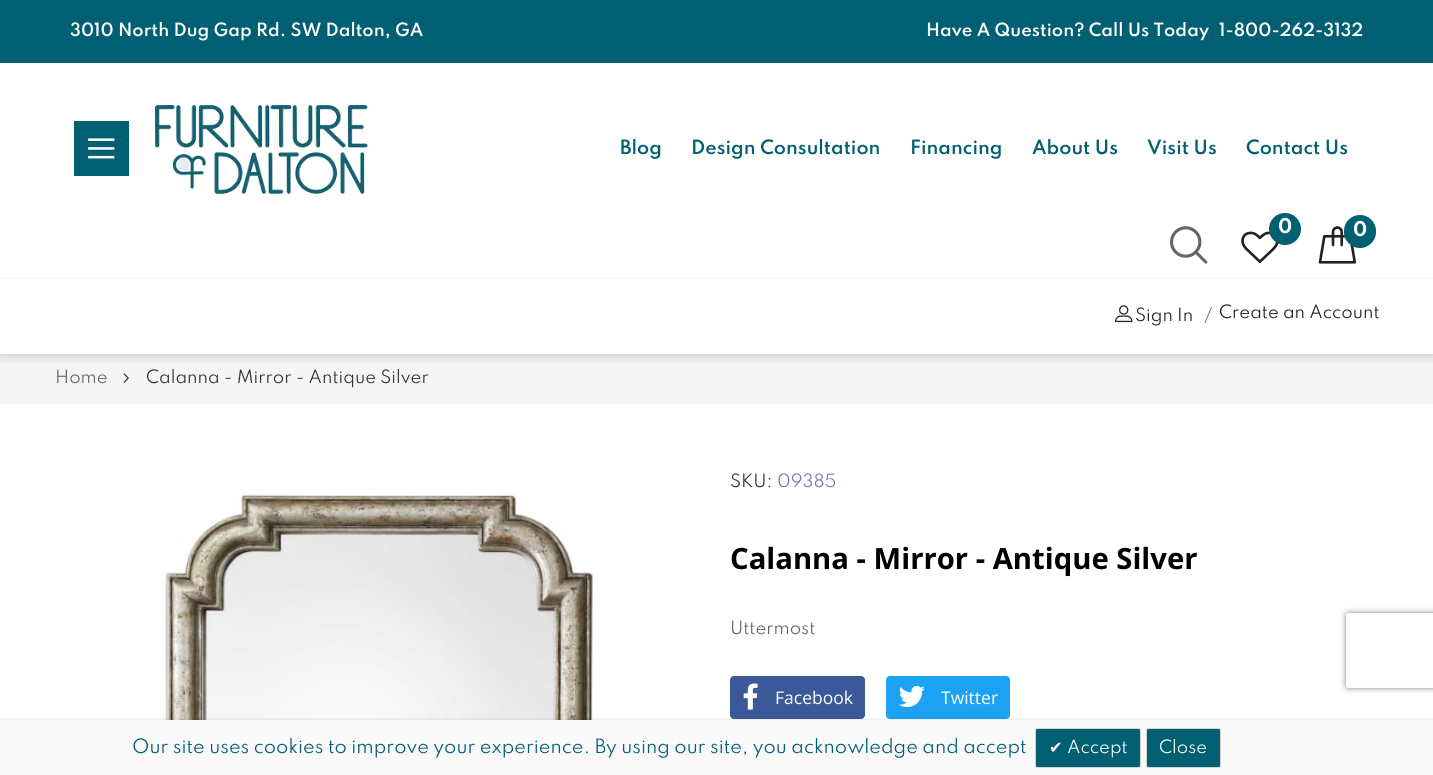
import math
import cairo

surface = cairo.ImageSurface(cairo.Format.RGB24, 1433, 775)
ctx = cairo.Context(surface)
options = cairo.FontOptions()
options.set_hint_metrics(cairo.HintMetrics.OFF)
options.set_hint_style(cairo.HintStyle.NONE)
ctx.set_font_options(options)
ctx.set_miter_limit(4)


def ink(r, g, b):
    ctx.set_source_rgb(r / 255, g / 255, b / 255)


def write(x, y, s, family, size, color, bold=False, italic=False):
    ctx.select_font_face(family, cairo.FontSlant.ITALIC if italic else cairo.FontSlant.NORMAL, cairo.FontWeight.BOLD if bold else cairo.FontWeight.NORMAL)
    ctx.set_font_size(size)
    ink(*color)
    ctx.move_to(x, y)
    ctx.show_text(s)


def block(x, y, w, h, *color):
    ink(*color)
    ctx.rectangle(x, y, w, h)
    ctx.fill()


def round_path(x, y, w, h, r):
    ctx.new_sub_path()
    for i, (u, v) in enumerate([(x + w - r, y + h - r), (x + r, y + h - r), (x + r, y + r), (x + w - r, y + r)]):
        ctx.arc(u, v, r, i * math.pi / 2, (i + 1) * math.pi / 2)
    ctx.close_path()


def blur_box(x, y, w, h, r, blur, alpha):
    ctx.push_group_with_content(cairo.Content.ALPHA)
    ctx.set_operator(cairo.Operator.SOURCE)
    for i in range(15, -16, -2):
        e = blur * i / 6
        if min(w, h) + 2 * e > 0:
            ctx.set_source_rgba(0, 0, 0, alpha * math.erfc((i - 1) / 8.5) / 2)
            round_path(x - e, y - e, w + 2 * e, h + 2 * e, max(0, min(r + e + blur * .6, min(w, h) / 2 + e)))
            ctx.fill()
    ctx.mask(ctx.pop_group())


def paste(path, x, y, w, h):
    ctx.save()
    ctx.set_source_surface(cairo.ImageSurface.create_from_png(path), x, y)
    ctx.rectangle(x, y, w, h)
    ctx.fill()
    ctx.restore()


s1 = dict(family="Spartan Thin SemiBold", size=16.25, color=(255, 255, 255))
s2 = dict(family="Spartan Thin SemiBold", size=17.5, color=(0, 95, 113))
s3 = dict(family="Spartan Thin", size=18, color=(255, 255, 255), bold=True)
s4 = dict(family="Spartan Thin", size=16.25, color=(34, 34, 34))
s5 = dict(family="Spartan Thin", size=16.25, color=(102, 102, 102))
s6 = dict(family="Spartan Thin", size=16.25, color=(51, 51, 51))
s7 = dict(family="Spartan Thin", size=16.25, color=(115, 119, 171))
s8 = dict(family="Open Sans", size=29.25, color=(0, 0, 0), bold=True)
s9 = dict(family="Open Sans", size=17.5, color=(255, 255, 255))
s10 = dict(family="Spartan Thin", size=17.5, color=(0, 93, 121))
s11 = dict(family="DejaVu Sans", size=16.25, color=(255, 255, 255))
s12 = dict(family="Spartan Thin", size=16.25, color=(255, 255, 255))

ink(255, 255, 255)
ctx.paint()
block(0, 354, 1433, 50, 245, 245, 245)
ink(94, 115, 144)
blur_box(0, 5, 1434, 354, 0, 2.5, 0.1)
block(0, 63, 1433, 291, 255, 255, 255)
block(0, 0, 1433, 63, 0, 95, 114)
write(70, 36, "3010 North Dug Gap Rd. SW Dalton, GA", **s1)
write(926, 36, "Have A Question? Call Us Today", **s1)
write(1219, 36, "1-800-262-3132", **s1)
block(74, 121, 55, 55, 0, 95, 114)
paste("pic1.png", 88, 138, 27, 21)
paste("pic2.png", 155, 105, 213, 89)
write(620, 154, "Blog", **s2)
write(691, 154, "Design Consultation", **s2)
write(910, 154, "Financing", **s2)
write(1032, 154, "About Us", **s2)
write(1147, 154, "Visit Us", **s2)
write(1246, 154, "Contact Us", **s2)
paste("pic3.png", 1170, 226, 38, 38)
paste("pic4.png", 1241, 231, 38, 32)
ink(0, 96, 114)
ctx.arc(1285, 229, 16, 0, 2 * math.pi)
ctx.fill()
write(1278, 233, "0", **s3)
paste("pic5.png", 1318, 226, 38, 38)
ink(0, 96, 114)
round_path(1344, 215, 32, 33, 16)
ctx.fill()
write(1353, 236, "0", **s3)
block(0, 278, 1433, 1, 242, 242, 242)
paste("pic6.png", 1115, 305, 18, 18)
ctx.save()
ctx.set_fill_rule(cairo.FillRule.EVEN_ODD)
ctx.new_path()
ctx.move_to(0, 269)
ctx.line_to(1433, 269)
ctx.line_to(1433, 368)
ctx.line_to(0, 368)
ctx.close_path()
ctx.move_to(-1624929, 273)
ctx.line_to(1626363, 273)
ctx.line_to(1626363, 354)
ctx.line_to(-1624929, 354)
ctx.close_path()
ctx.clip()
ink(94, 115, 144)
blur_box(-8, 278, 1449, 81, 0, 2.5, 0.1)
ctx.restore()
write(1135, 321, "Sign In", **s4)
write(1204, 321, "/", **s5)
write(1219, 318, "Create an Account", **s4)
write(55, 383, "Home", **s5)
paste("pic7.png", 123, 373, 6, 10)
write(146, 383, "Calanna - Mirror - Antique Silver", **s6)
paste("pic8.png", 163, 490, 432, 230)
write(730, 487, "SKU:", **s6)
write(777, 487, "09385", **s7)
write(730, 569, "Calanna - Mirror - Antique Silver", **s8)
write(730, 634, "Uttermost", **s5)
ink(59, 89, 152)
round_path(730, 676, 135, 43, 4)
ctx.fill()
paste("pic9.png", 743, 683, 15, 27)
write(775, 704, "Facebook", **s9)
ink(29, 161, 242)
round_path(886, 676, 124, 43, 4)
ctx.fill()
paste("pic10.png", 899, 685, 26, 23)
write(941, 704, "Twitter", **s9)
ink(0, 0, 0)
blur_box(0, 723, 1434, 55, 0, 3, 0.47)
block(0, 720, 1433, 55, 249, 249, 249)
write(132, 753, "Our site uses cookies to improve your experience. By using our site, you acknowledge and accept", **s10)
ink(0, 96, 114)
round_path(1035.5, 728.5, 105, 39, 2)
ctx.fill_preserve()
ink(212, 212, 212)
ctx.set_line_width(1)
ctx.stroke()
write(1049, 753, "✔", **s11)
write(1067, 753, "Accept", **s12)
ink(0, 96, 114)
round_path(1146.5, 728.5, 74, 39, 2)
ctx.fill_preserve()
ink(212, 212, 212)
ctx.stroke()
write(1159, 753, "Close", **s12)
ctx.save()
ctx.set_fill_rule(cairo.FillRule.EVEN_ODD)
ctx.new_path()
ctx.move_to(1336, 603)
ctx.line_to(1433, 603)
ctx.line_to(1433, 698)
ctx.line_to(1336, 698)
ctx.close_path()
ctx.move_to(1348.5, 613)
ctx.line_to(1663.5, 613)
ctx.curve_to(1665, 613, 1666, 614, 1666, 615.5)
ctx.line_to(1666, 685.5)
ctx.curve_to(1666, 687, 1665, 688, 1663.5, 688)
ctx.line_to(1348.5, 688)
ctx.curve_to(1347, 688, 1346, 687, 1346, 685.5)
ctx.line_to(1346, 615.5)
ctx.curve_to(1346, 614, 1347, 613, 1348.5, 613)
ctx.close_path()
ctx.clip()
ink(128, 128, 128)
blur_box(1346, 613, 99, 75, 2.5, 3, 1)
ctx.restore()
surface.write_to_png("screenshot.png")
